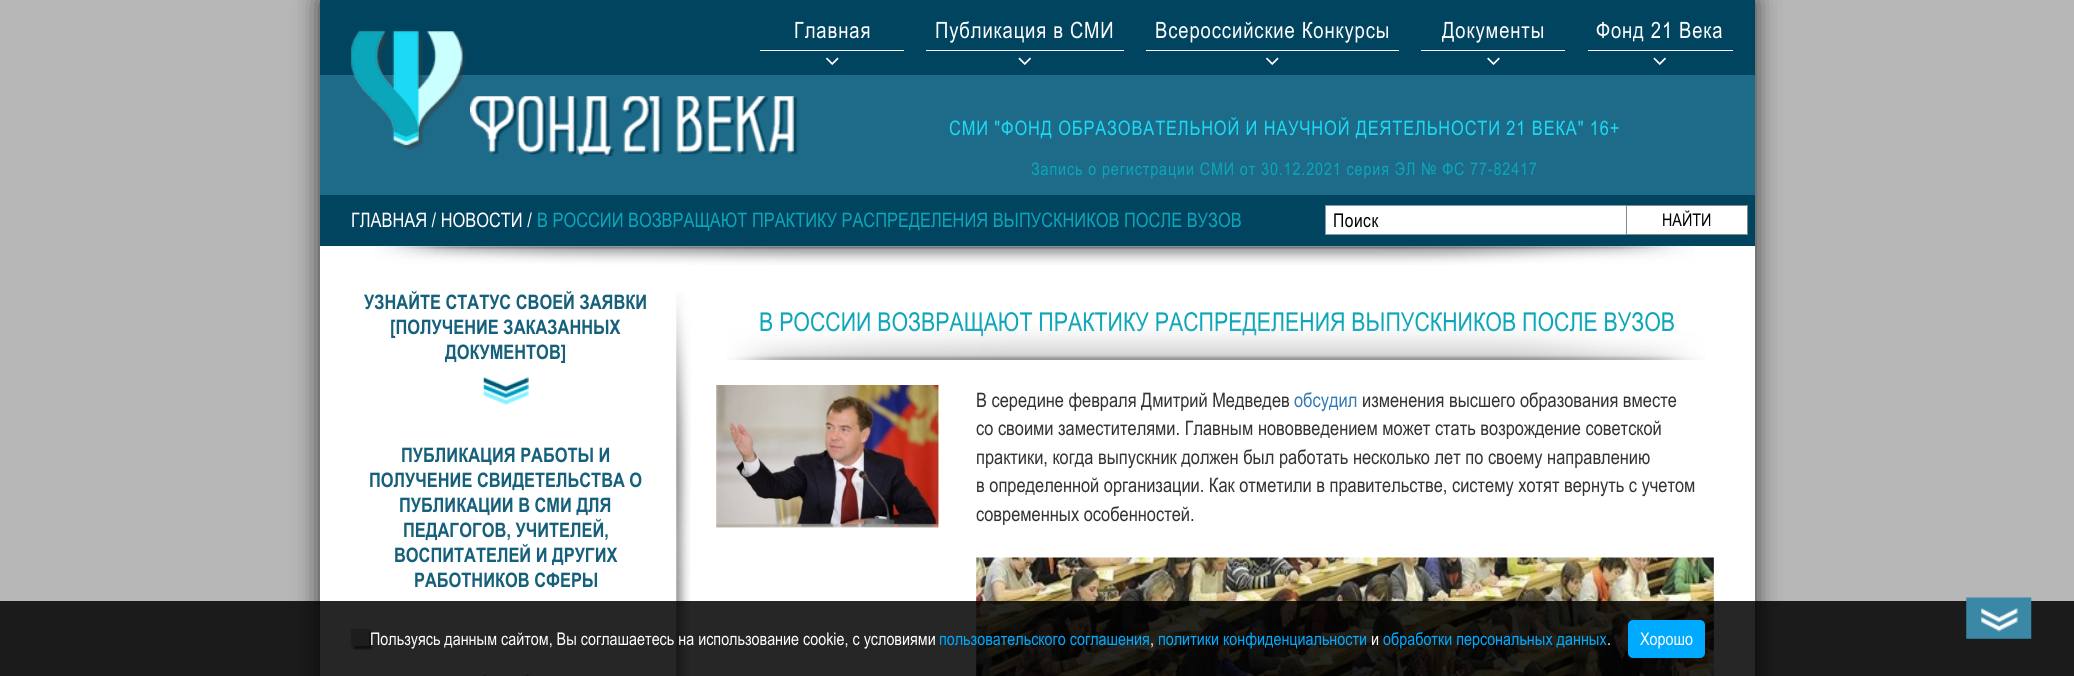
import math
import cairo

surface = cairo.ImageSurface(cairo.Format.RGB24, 2074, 676)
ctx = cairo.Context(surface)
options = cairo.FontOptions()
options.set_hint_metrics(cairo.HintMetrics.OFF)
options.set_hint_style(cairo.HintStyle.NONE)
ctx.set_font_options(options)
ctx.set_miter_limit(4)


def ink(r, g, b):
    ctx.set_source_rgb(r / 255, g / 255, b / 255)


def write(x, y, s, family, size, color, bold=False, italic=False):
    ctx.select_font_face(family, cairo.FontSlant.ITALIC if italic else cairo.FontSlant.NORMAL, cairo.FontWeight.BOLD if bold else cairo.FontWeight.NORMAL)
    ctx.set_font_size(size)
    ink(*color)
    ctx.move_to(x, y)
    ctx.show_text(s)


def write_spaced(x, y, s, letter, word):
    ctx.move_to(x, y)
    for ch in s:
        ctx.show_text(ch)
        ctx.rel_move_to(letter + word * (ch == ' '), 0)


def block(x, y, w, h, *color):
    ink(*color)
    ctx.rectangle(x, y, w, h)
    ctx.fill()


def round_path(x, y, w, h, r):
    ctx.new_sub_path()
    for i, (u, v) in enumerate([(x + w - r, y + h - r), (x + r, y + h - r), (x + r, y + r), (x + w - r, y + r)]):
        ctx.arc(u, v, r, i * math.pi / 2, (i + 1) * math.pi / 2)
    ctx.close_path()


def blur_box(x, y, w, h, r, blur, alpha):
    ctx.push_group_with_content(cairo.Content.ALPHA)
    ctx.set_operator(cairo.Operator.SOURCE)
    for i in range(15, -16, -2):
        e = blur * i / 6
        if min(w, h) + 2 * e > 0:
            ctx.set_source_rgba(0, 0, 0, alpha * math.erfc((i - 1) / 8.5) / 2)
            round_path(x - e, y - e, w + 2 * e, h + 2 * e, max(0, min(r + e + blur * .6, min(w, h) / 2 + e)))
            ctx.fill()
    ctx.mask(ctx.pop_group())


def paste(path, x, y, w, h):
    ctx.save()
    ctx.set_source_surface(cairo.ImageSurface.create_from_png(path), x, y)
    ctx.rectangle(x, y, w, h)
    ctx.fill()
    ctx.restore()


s1 = dict(family="Arial", size=20, color=(255, 255, 255))
s2 = dict(family="Arial", size=20, color=(12, 166, 186))
s3 = dict(family="Arial", size=17.5, color=(0, 0, 0))
s4 = dict(family="Arial", size=20, color=(22, 96, 123), bold=True)
s5 = dict(family="Arial", size=26, color=(12, 166, 186))
s6 = dict(family="Arial", size=20, color=(51, 51, 51))
s7 = dict(family="Arial", size=20, color=(51, 122, 183))
s8 = dict(family="Arial", size=17.5, color=(255, 255, 255))
s9 = dict(family="Arial", size=17.5, color=(0, 170, 255))

ink(183, 183, 183)
ctx.paint()
ink(51, 51, 51)
blur_box(320, 0, 1435, 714, 0, 12.5, 1)
block(320, 246, 1435, 430, 255, 255, 255)
block(320, 0, 1435, 75, 0, 68, 95)
block(760, 50, 144, 1, 255, 255, 255)
ctx.select_font_face("Arial")
ctx.set_font_size(22.5)
write_spaced(794, 38, "Главная", 0.88, 0)
paste("pic1.png", 826, 57, 13, 8)
block(926, 50, 198, 1, 255, 255, 255)
write_spaced(935, 38, "Публикация в СМИ", 0.88, 0)
paste("pic2.png", 1018, 57, 13, 8)
block(1146, 50, 253, 1, 255, 255, 255)
write_spaced(1155, 38, "Всероссийские Конкурсы", 0.88, 0)
paste("pic1.png", 1266, 57, 13, 8)
block(1421, 50, 144, 1, 255, 255, 255)
write_spaced(1442, 38, "Документы", 0.88, 0)
paste("pic3.png", 1487, 57, 13, 8)
block(1588, 50, 145, 1, 255, 255, 255)
write_spaced(1596, 38, "Фонд 21 Века", 0.88, 0)
paste("pic2.png", 1653, 57, 13, 8)
block(320, 75, 1435, 120, 30, 107, 137)
paste("pic4.png", 351, 31, 115, 119)
paste("pic5.png", 470, 96, 328, 61)
ctx.set_font_size(20)
ink(27, 218, 245)
write_spaced(949, 135, "СМИ \"ФОНД ОБРАЗОВАТЕЛЬНОЙ И НАУЧНОЙ ДЕЯТЕЛЬНОСТИ 21 ВЕКА\" 16+", 0.88, 0)
ctx.set_font_size(17.5)
ink(12, 166, 186)
write_spaced(1031, 175, "Запись о регистрации СМИ от 30.12.2021 серия ЭЛ № ФС 77-82417", 0.88, 0)
block(320, 195, 1435, 51, 0, 68, 95)
write(351, 227, "ГЛАВНАЯ / НОВОСТИ /", **s1)
write(537, 227, "В РОССИИ ВОЗВРАЩАЮТ ПРАКТИКУ РАСПРЕДЕЛЕНИЯ ВЫПУСКНИКОВ ПОСЛЕ ВУЗОВ", **s2)
block(1326, 206, 300, 28, 255, 255, 255)
ctx.rectangle(1325.5, 205.5, 302, 29)
ink(127, 157, 185)
ctx.set_line_width(1)
ctx.stroke()
ctx.set_font_size(19)
ink(0, 0, 0)
write_spaced(1333, 227, "Поиск", 0.5, 0)
ink(255, 255, 255)
ctx.rectangle(1626.5, 205.5, 121, 29)
ctx.fill_preserve()
ink(135, 136, 138)
ctx.stroke()
write(1662, 226, "НАЙТИ", **s3)
paste("pic6.png", 375, 246, 1320, 19)
write(364, 309, "УЗНАЙТЕ СТАТУС СВОЕЙ ЗАЯВКИ", **s4)
write(390, 334, "[ПОЛУЧЕНИЕ ЗАКАЗАННЫХ", **s4)
write(445, 359, "ДОКУМЕНТОВ]", **s4)
paste("pic7.png", 483, 377, 46, 28)
write(401, 462, "ПУБЛИКАЦИЯ РАБОТЫ И", **s4)
write(369, 487, "ПОЛУЧЕНИЕ СВИДЕТЕЛЬСТВА О", **s4)
write(399, 512, "ПУБЛИКАЦИИ В СМИ ДЛЯ", **s4)
write(403, 537, "ПЕДАГОГОВ, УЧИТЕЛЕЙ,", **s4)
write(394, 562, "ВОСПИТАТЕЛЕЙ И ДРУГИХ", **s4)
write(414, 587, "РАБОТНИКОВ СФЕРЫ", **s4)
ink(99, 99, 99)
blur_box(354, 631, 17, 18, 0, 1, 1)
block(351, 629, 18, 17, 192, 192, 192)
paste("pic8.png", 483, 675, 46, 1)
write(759, 331, "В РОССИИ ВОЗВРАЩАЮТ ПРАКТИКУ РАСПРЕДЕЛЕНИЯ ВЫПУСКНИКОВ ПОСЛЕ ВУЗОВ", **s5)
paste("pic9.png", 727, 324, 978, 36)
paste("pic10.png", 716, 385, 223, 143)
write(976, 407, "В середине февраля Дмитрий Медведев", **s6)
write(1294, 407, "обсудил", **s7)
write(1362, 407, "изменения высшего образования вместе", **s6)
write(976, 435, "со своими заместителями. Главным нововведением может стать возрождение советской", **s6)
write(976, 464, "практики, когда выпускник должен был работать несколько лет по своему направлению", **s6)
write(976, 492, "в определенной организации. Как отметили в правительстве, систему хотят вернуть с учетом", **s6)
write(976, 521, "современных особенностей.", **s6)
paste("pic11.png", 976, 557, 741, 119)
paste("pic12.png", 676, 293, 15, 285)
paste("pic13.png", 676, 577, 14, 99)
ctx.set_source_rgba(0, 0, 0, 0.85)
ctx.rectangle(0, 601, 2074, 75)
ctx.fill()
write(370, 645, "Пользуясь данным сайтом, Вы соглашаетесь на использование cookie, с условиями", **s8)
write(939, 645, "пользовательского соглашения", **s9)
write(1158, 645, "политики конфиденциальности", **s9)
write(1371, 645, "и", **s8)
write(1383, 645, "обработки персональных данных", **s9)
round_path(1628, 620, 77, 38, 5)
ctx.fill()
write(1640, 645, "Хорошо", **s8)
write(1150, 645, ",", **s8)
write(1607, 645, ".", **s8)
paste("pic14.png", 1966, 597, 66, 42)
surface.write_to_png("screenshot.png")
